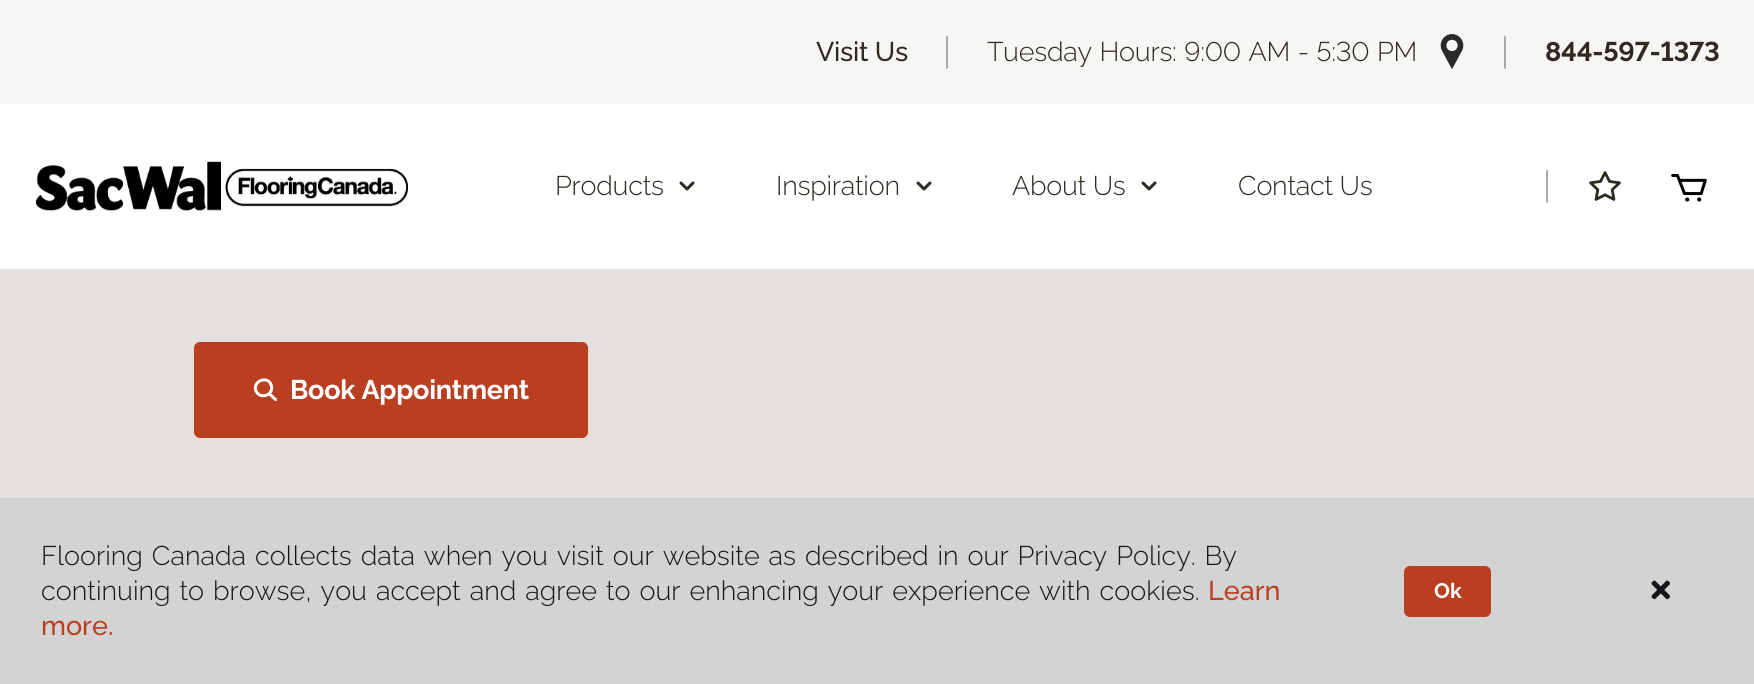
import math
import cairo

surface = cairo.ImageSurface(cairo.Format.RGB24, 1754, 684)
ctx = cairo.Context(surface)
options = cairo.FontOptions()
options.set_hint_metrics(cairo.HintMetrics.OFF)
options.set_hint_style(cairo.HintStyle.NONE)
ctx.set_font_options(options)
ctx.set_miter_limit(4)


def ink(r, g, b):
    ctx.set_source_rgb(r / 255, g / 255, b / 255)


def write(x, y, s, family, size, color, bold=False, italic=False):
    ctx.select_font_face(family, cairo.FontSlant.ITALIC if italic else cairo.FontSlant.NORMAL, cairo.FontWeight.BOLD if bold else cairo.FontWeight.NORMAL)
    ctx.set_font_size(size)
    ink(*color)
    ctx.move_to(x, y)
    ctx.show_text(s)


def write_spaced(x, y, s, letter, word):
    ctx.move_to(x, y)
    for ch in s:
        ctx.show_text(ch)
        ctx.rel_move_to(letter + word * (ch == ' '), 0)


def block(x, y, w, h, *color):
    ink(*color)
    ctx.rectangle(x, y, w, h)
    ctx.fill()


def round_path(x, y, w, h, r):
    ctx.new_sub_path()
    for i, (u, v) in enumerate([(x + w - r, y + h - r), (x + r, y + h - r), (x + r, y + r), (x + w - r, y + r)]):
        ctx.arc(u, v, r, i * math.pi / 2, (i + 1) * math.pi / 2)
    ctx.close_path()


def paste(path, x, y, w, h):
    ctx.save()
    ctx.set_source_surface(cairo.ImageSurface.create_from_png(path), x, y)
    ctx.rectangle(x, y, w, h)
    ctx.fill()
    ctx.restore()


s1 = dict(family="Raleway Light", size=36, color=(153, 153, 153))
s2 = dict(family="Raleway Medium", size=27, color=(185, 63, 32))
s3 = dict(family="Raleway", size=21, color=(255, 255, 255), bold=True)

ink(227, 224, 221)
ctx.paint()
block(0, 104, 1754, 165, 255, 255, 255)
block(0, 0, 1754, 104, 247, 246, 245)
ctx.select_font_face("Raleway Medium")
ctx.set_font_size(27)
ink(45, 42, 32)
write_spaced(816, 61, "Visit Us", -0.25, 0)
write(943, 64, "|", **s1)
ctx.select_font_face("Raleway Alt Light")
ctx.set_font_size(27)
ink(45, 42, 32)
write_spaced(987, 61, "Tuesday Hours: 9:00 AM - 5:30 PM", -0.25, 1)
paste("pic1.png", 1440, 34, 24, 35)
write(1501, 64, "|", **s1)
ctx.select_font_face("Raleway Alt", cairo.FontSlant.NORMAL, cairo.FontWeight.BOLD)
ctx.set_font_size(27)
ink(45, 42, 32)
write_spaced(1545, 61, "844-597-1373", -0.25, 0)
paste("pic2.png", 36, 161, 372, 50)
ctx.select_font_face("Raleway Light")
write_spaced(555, 195, "Products", -0.25, 0)
paste("pic3.png", 679, 181, 16, 10)
write_spaced(776, 195, "Inspiration", -0.25, 0)
paste("pic3.png", 916, 181, 16, 10)
write_spaced(1012, 195, "About Us", -0.25, 0)
paste("pic3.png", 1141, 181, 16, 10)
write_spaced(1238, 195, "Contact Us", -0.25, 0)
write(1543, 198, "|", **s1)
paste("pic4.png", 1589, 171, 32, 30)
paste("pic5.png", 1671, 174, 36, 28)
ink(185, 63, 32)
round_path(194, 342, 394, 96, 6)
ctx.fill()
ctx.new_path()
ctx.move_to(256, 391)
ctx.curve_to(260.5, 400.5, 275, 394.5, 271, 384.5)
ctx.curve_to(267, 375, 252, 381.5, 256, 391)
ctx.close_path()
ctx.move_to(269, 393.5)
ctx.line_to(275.5, 399.5)
ink(255, 255, 255)
ctx.set_line_width(3)
ctx.set_line_cap(cairo.LineCap.ROUND)
ctx.set_line_join(cairo.LineJoin.ROUND)
ctx.stroke()
ctx.select_font_face("Raleway", cairo.FontSlant.NORMAL, cairo.FontWeight.BOLD)
ctx.set_font_size(27)
write_spaced(290, 399, "Book Appointment", -0.25, 0)
block(0, 498, 1754, 186, 211, 211, 212)
ctx.select_font_face("Raleway Light")
ink(20, 22, 25)
write_spaced(41, 565, "Flooring Canada collects data when you visit our website as described in our Privacy Policy. By", 0, 2)
write_spaced(41, 600, "continuing to browse, you accept and agree to our enhancing your experience with cookies.", 0, 2)
write(1208, 600, "Learn", **s2)
write(41, 635, "more.", **s2)
round_path(1404, 566, 87, 51, 6)
ctx.fill()
write(1434, 598, "Ok", **s3)
paste("pic6.png", 1651, 580, 19, 20)
surface.write_to_png("screenshot.png")
